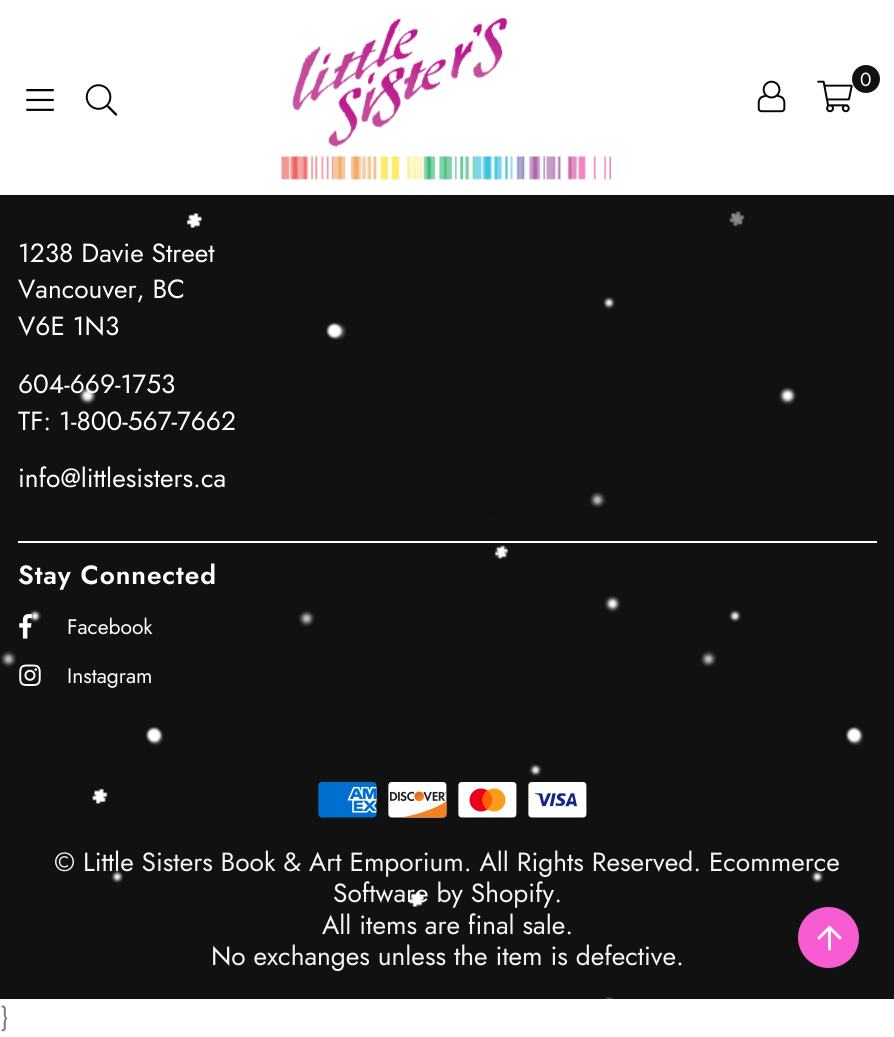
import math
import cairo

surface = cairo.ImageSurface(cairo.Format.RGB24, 894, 1037)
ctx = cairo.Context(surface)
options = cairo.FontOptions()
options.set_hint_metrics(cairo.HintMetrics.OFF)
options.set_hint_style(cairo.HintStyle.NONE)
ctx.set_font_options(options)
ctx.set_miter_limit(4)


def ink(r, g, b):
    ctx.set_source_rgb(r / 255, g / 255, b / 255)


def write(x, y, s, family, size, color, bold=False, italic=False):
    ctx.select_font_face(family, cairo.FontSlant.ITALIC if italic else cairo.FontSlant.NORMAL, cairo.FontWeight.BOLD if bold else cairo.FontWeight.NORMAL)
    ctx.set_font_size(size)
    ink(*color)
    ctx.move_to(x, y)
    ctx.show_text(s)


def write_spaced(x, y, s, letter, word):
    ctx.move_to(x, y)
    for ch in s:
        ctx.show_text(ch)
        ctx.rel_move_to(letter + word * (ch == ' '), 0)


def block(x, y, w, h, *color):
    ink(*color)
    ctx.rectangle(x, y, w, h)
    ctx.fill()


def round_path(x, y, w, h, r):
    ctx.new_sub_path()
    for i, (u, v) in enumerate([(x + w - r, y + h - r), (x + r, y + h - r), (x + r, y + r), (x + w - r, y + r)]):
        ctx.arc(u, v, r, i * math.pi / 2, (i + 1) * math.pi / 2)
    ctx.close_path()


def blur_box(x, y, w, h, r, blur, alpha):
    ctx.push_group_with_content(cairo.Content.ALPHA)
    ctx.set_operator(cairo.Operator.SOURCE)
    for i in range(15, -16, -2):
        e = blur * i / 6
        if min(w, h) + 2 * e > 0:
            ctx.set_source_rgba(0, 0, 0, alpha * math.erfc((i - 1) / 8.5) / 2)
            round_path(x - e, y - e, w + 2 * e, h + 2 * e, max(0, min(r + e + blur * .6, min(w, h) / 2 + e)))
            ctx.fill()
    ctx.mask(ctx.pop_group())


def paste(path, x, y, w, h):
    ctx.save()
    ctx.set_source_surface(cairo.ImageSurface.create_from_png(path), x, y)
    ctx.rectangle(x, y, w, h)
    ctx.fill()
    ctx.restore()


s1 = dict(family="Jost", size=26.25, color=(255, 255, 255))
s2 = dict(family="Jost", size=21, color=(255, 255, 255))
s3 = dict(family="Jost", size=26.25, color=(245, 245, 245))
s4 = dict(family="Jost", size=19, color=(255, 255, 255))
s5 = dict(family="Jost", size=26.25, color=(120, 129, 136))

ink(255, 255, 255)
ctx.paint()
block(0, 195, 894, 804, 17, 17, 17)
write(18, 262, "1238 Davie Street", **s1)
write(18, 298, "Vancouver, BC", **s1)
write(18, 335, "V6E 1N3", **s1)
write(18, 393, "604-669-1753", **s1)
write(18, 430, "TF: 1-800-567-7662", **s1)
write(18, 487, "info@littlesisters.ca", **s1)
block(18, 541, 859, 2, 255, 255, 255)
ctx.select_font_face("Jost SemiBold")
write_spaced(18, 584, "Stay Connected", 0.9, 0)
paste("pic7.png", 19, 614, 13, 25)
write(67, 634, "Facebook", **s2)
paste("pic8.png", 19, 664, 22, 22)
write(67, 683, "Instagram", **s2)
paste("pic9.png", 318, 782, 59, 36)
paste("pic10.png", 388, 782, 59, 36)
paste("pic11.png", 458, 782, 59, 36)
paste("pic12.png", 528, 782, 59, 36)
write(54, 871, "© Little Sisters Book & Art Emporium. All Rights Reserved. Ecommerce", **s3)
write(333, 902, "Software by Shopify.", **s3)
write(322, 934, "All items are final sale.", **s3)
write(211, 965, "No exchanges unless the item is defective.", **s3)
paste("pic6.png", 0, 211, 864, 788)
ink(0, 0, 0)
blur_box(0, 0, 894, 194, 0, 6, 0.2)
block(0, 0, 894, 195, 255, 255, 255)
paste("pic1.png", 281, 17, 331, 163)
paste("pic2.png", 757, 80, 29, 33)
paste("pic3.png", 817, 80, 36, 33)
ink(17, 17, 17)
ctx.arc(866, 79, 14, 0, 2 * math.pi)
ctx.fill()
write(860, 86, "0", **s4)
paste("pic4.png", 26, 89, 28, 22)
paste("pic5.png", 85, 84, 33, 32)
ink(247, 92, 210)
ctx.arc(828.5, 937.5, 30.5, 0, 2 * math.pi)
ctx.fill()
paste("pic13.png", 817, 925, 25, 26)
write(0, 1026, "}", **s5)
surface.write_to_png("screenshot.png")
